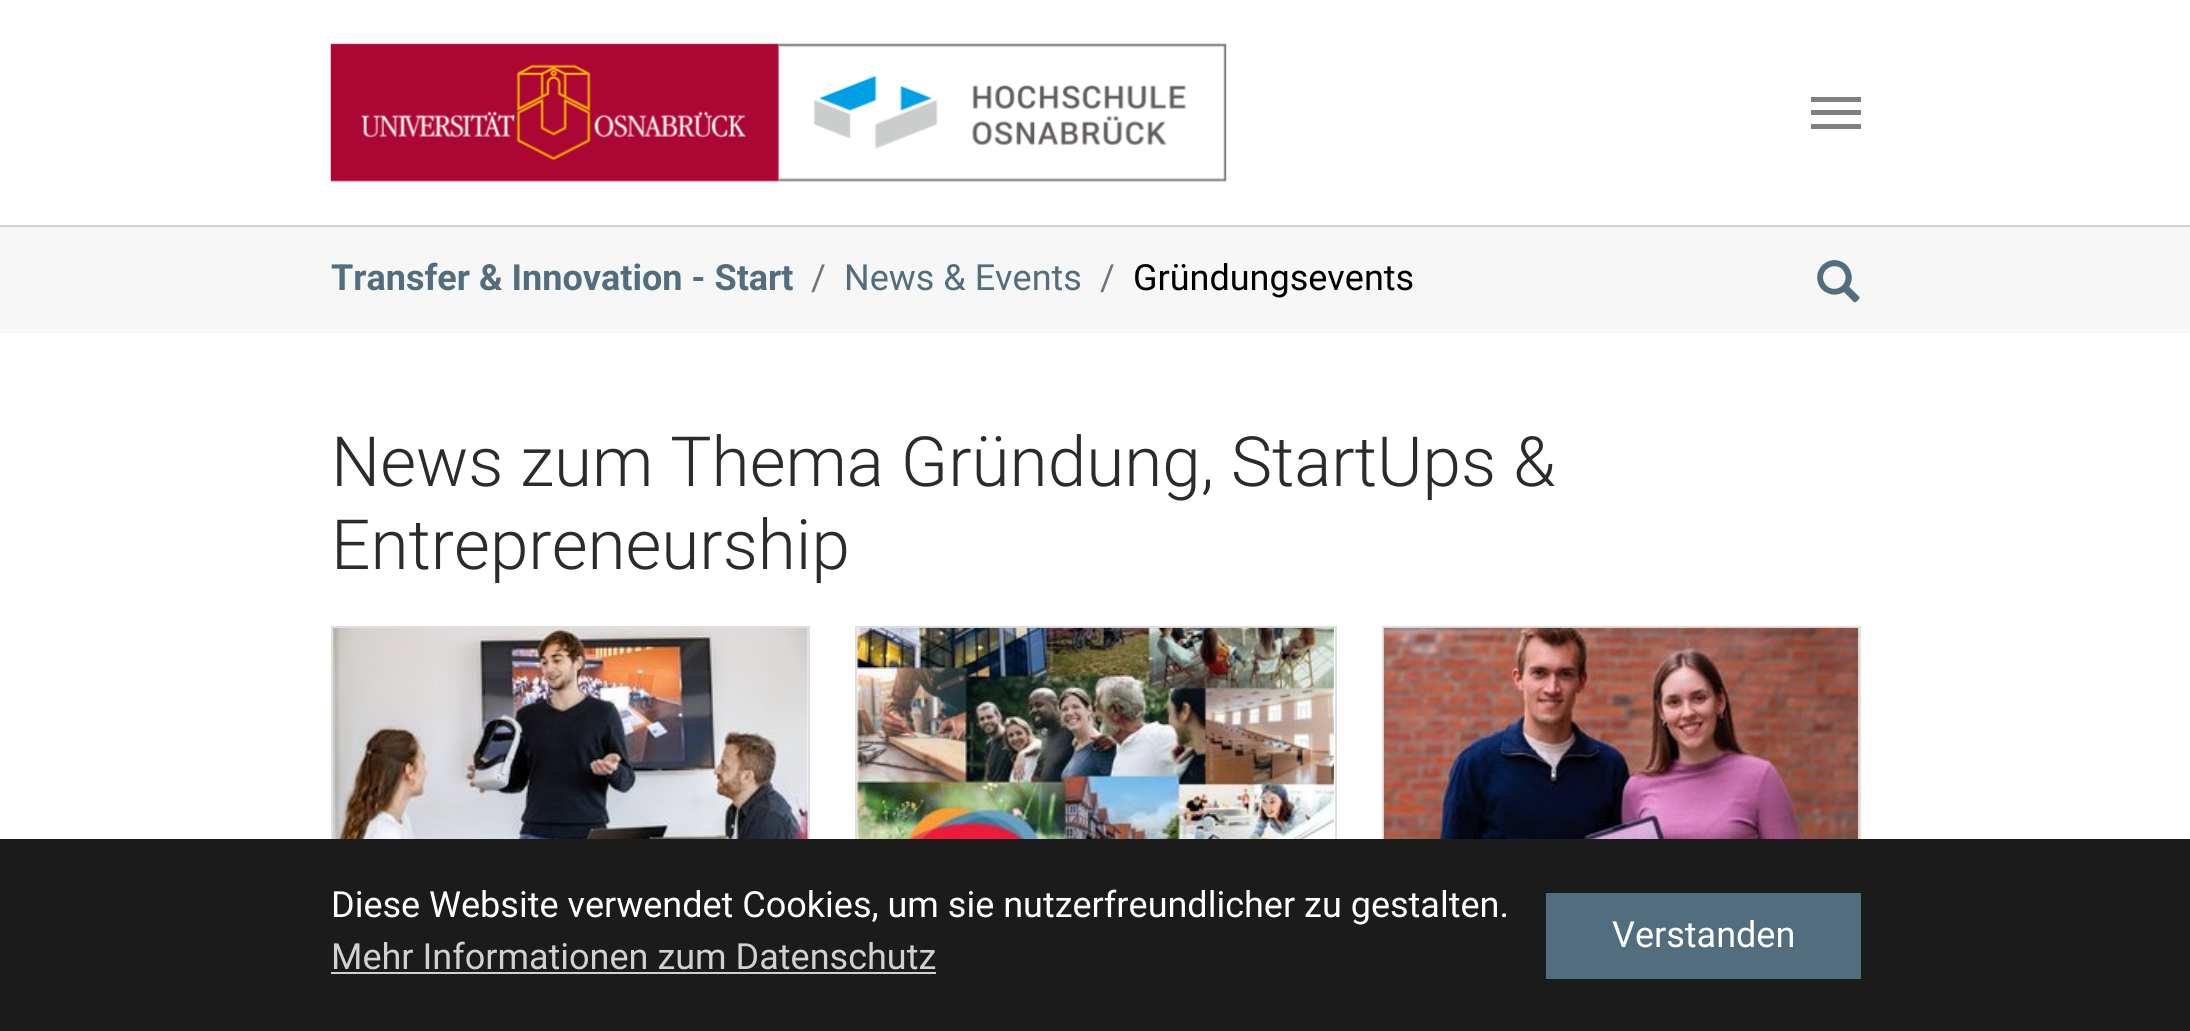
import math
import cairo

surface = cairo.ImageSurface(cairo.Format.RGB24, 2190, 1031)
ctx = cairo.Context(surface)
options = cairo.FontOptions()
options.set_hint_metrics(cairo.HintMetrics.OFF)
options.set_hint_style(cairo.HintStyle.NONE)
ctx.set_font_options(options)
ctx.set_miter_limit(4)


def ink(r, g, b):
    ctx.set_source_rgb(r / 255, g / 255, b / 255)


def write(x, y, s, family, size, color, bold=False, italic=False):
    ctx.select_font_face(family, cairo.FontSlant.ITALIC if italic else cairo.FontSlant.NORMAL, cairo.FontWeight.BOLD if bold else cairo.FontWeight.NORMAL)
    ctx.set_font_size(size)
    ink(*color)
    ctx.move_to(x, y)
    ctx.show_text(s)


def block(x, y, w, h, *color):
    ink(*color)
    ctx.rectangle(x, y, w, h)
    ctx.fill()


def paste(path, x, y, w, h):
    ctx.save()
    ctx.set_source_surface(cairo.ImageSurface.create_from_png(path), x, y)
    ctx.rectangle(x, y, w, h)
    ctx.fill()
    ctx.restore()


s1 = dict(family="Roboto", size=36, color=(82, 109, 125), bold=True)
s2 = dict(family="Roboto", size=36, color=(108, 117, 125))
s3 = dict(family="Roboto", size=36, color=(82, 109, 125))
s4 = dict(family="Roboto", size=36, color=(0, 0, 0))
s5 = dict(family="Roboto Light", size=69.25, color=(43, 43, 43))
s6 = dict(family="Roboto", size=36, color=(255, 255, 255))
s7 = dict(family="Roboto", size=36, color=(209, 209, 209))

ink(255, 255, 255)
ctx.paint()
ink(210, 210, 210)
ctx.new_path()
ctx.move_to(0, 225)
ctx.line_to(0, 227)
ctx.line_to(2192, 227)
ctx.line_to(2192, 2)
ctx.line_to(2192, 225)
ctx.close_path()
ctx.fill()
paste("pic1.png", 330, 43, 449, 139)
paste("pic2.png", 778, 43, 449, 139)
block(1811, 110, 50, 5, 128, 128, 128)
block(1811, 97, 50, 5, 128, 128, 128)
block(1811, 124, 50, 5, 128, 128, 128)
block(0, 227, 2190, 106, 247, 247, 247)
write(331, 290, "Transfer & Innovation - Start", **s1)
write(811, 290, "/", **s2)
write(844, 290, "News & Events", **s3)
write(1100, 290, "/", **s2)
write(1133, 290, "Gründungsevents", **s4)
paste("pic3.png", 1817, 260, 43, 43)
write(331, 486, "News zum Thema Gründung, StartUps &", **s5)
write(331, 569, "Entrepreneurship", **s5)
ctx.rectangle(332, 627, 477, 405)
ink(223, 223, 223)
ctx.stroke()
paste("pic4.png", 333, 627, 475, 212)
ctx.rectangle(856, 627, 480, 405)
ctx.stroke()
paste("pic5.png", 857, 627, 478, 212)
ctx.rectangle(1383, 627, 477, 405)
ctx.stroke()
paste("pic6.png", 1383, 627, 476, 212)
block(0, 839, 2190, 192, 27, 27, 27)
write(331, 917, "Diese Website verwendet Cookies, um sie nutzerfreundlicher zu gestalten.", **s6)
write(331, 969, "Mehr Informationen zum Datenschutz", **s7)
block(331, 972, 605, 2, 209, 209, 209)
block(1546, 893, 315, 86, 82, 109, 125)
write(1612, 947, "Verstanden", **s6)
surface.write_to_png("screenshot.png")
